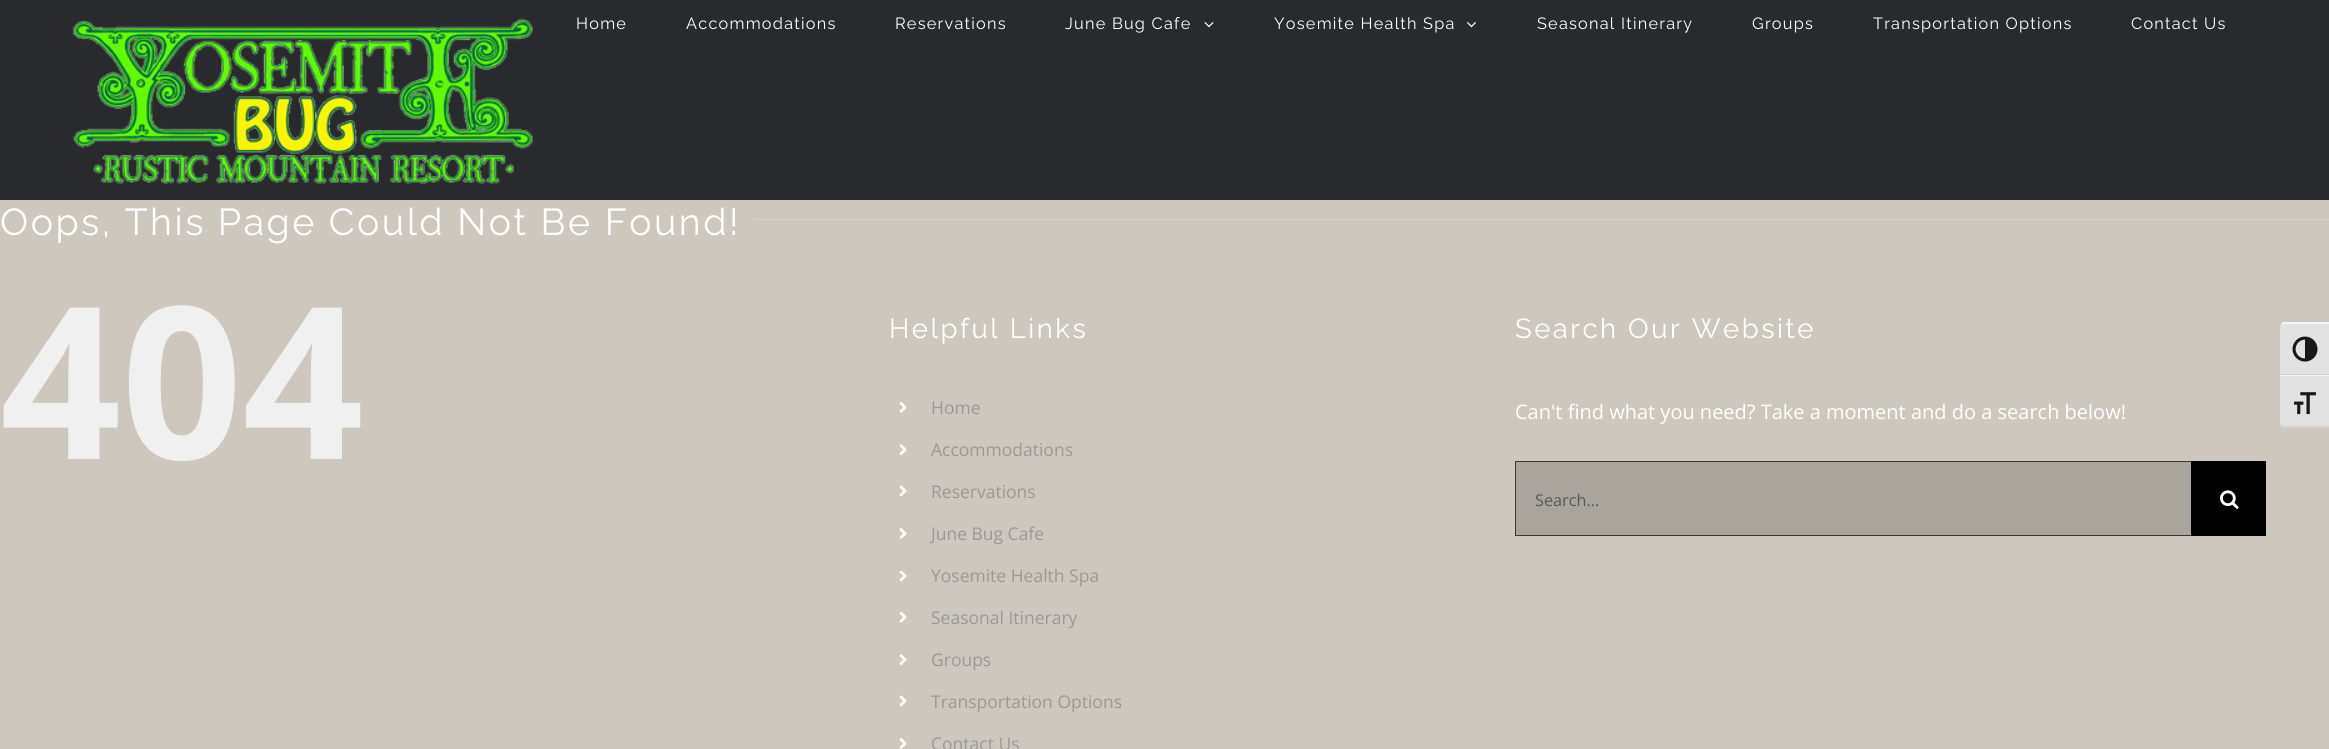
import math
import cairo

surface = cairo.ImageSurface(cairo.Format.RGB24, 2329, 749)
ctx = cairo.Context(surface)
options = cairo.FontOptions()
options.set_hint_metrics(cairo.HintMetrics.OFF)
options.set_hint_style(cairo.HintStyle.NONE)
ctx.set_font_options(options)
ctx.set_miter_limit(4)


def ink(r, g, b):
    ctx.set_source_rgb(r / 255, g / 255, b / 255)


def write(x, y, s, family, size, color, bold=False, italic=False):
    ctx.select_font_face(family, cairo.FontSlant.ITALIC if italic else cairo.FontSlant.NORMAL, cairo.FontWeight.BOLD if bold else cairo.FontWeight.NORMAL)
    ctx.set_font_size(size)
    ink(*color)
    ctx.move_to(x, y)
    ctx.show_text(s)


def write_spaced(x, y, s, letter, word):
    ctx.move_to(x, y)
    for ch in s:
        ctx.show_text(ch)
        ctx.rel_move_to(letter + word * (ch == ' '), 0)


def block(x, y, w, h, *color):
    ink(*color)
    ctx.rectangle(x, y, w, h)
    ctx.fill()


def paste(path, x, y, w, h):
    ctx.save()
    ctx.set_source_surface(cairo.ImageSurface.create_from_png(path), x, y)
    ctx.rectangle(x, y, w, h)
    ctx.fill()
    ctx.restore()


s1 = dict(family="Open Sans", size=212, color=(240, 240, 240), bold=True)
s2 = dict(family="Open Sans", size=17.5, color=(153, 153, 153))
s3 = dict(family="Open Sans", size=20, color=(255, 255, 255))
s4 = dict(family="Open Sans", size=16.25, color=(85, 88, 92))

ink(205, 199, 189)
ctx.paint()
block(0, 0, 2329, 200, 40, 42, 45)
paste("pic1.png", 72, 18, 462, 166)
ctx.select_font_face("Raleway")
ctx.set_font_size(16.25)
ink(255, 255, 255)
write_spaced(576, 29, "Home", 1.25, 0)
write_spaced(686, 29, "Accommodations", 1.25, 0)
write_spaced(895, 29, "Reservations", 1.25, 0)
write_spaced(1065, 29, "June Bug Cafe", 1.25, 0)
paste("pic2.png", 1204, 22, 10, 6)
write_spaced(1274, 29, "Yosemite Health Spa", 1.25, 0)
paste("pic3.png", 1467, 22, 9, 6)
write_spaced(1537, 29, "Seasonal Itinerary", 1.25, 0)
write_spaced(1752, 29, "Groups", 1.25, 0)
write_spaced(1873, 29, "Transportation Options", 1.25, 0)
write_spaced(2131, 29, "Contact Us", 1.25, 0)
ctx.set_font_size(37.5)
write_spaced(0, 235, "Oops, This Page Could Not Be Found!", 2.5, 0)
block(753, 219, 1576, 1, 215, 210, 202)
write(0, 459, "404", **s1)
ctx.select_font_face("Raleway")
ctx.set_font_size(27.5)
ink(255, 255, 255)
write_spaced(889, 338, "Helpful Links", 2.5, 0)
paste("pic4.png", 899, 401, 8, 12)
write(931, 414, "Home", **s2)
paste("pic5.png", 899, 444, 8, 11)
write(931, 456, "Accommodations", **s2)
paste("pic6.png", 899, 485, 8, 12)
write(931, 498, "Reservations", **s2)
paste("pic7.png", 899, 528, 8, 11)
write(931, 540, "June Bug Cafe", **s2)
paste("pic6.png", 899, 570, 8, 12)
write(931, 582, "Yosemite Health Spa", **s2)
paste("pic4.png", 899, 611, 8, 12)
write(931, 624, "Seasonal Itinerary", **s2)
paste("pic5.png", 899, 654, 8, 11)
write(931, 666, "Groups", **s2)
paste("pic6.png", 899, 695, 8, 12)
write(931, 708, "Transportation Options", **s2)
paste("pic7.png", 899, 738, 8, 11)
write(931, 750, "Contact Us", **s2)
ctx.select_font_face("Raleway")
ctx.set_font_size(27.5)
ink(255, 255, 255)
write_spaced(1515, 338, "Search Our Website", 2.5, 0)
write(1515, 419, "Can't find what you need? Take a moment and do a search below!", **s3)
block(1516, 462, 675, 73, 169, 164, 156)
block(1515, 461, 676, 1, 55, 56, 59)
block(1515, 535, 676, 1, 55, 56, 59)
block(1515, 461, 1, 75, 55, 56, 59)
write(1535, 506, "Search...", **s4)
block(2191, 461, 75, 75, 0, 0, 0)
paste("pic8.png", 2220, 490, 19, 19)
ink(226, 226, 226)
ctx.new_path()
ctx.move_to(2285, 323)
ctx.line_to(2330, 323)
ctx.line_to(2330, 375)
ctx.line_to(2280, 375)
ctx.line_to(2280, 328)
ctx.curve_to(2280, 325, 2282, 323, 2285, 323)
ctx.close_path()
ctx.fill()
ink(245, 245, 245)
ctx.new_path()
ctx.move_to(2285, 324)
ctx.line_to(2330, 324)
ctx.line_to(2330, 322)
ctx.line_to(2283, 322)
ctx.curve_to(2281, 323, 2280, 326, 2280, 328)
ctx.curve_to(2280, 325, 2282, 324, 2285, 324)
ctx.close_path()
ctx.fill()
block(2280, 374, 49, 1, 210, 210, 210)
paste("pic9.png", 2292, 336, 26, 26)
ink(226, 226, 226)
ctx.new_path()
ctx.move_to(2280, 375)
ctx.line_to(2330, 375)
ctx.line_to(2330, 428)
ctx.line_to(2285, 428)
ctx.curve_to(2282, 428, 2280, 426, 2280, 423)
ctx.close_path()
ctx.fill()
block(2280, 375, 49, 1, 245, 245, 245)
ink(210, 210, 210)
ctx.new_path()
ctx.move_to(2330, 428)
ctx.line_to(2283, 428)
ctx.curve_to(2281, 427, 2280, 424, 2280, 422)
ctx.curve_to(2280, 425, 2282, 426, 2285, 426)
ctx.line_to(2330, 426)
ctx.close_path()
ctx.fill()
paste("pic10.png", 2294, 392, 22, 23)
surface.write_to_png("screenshot.png")
